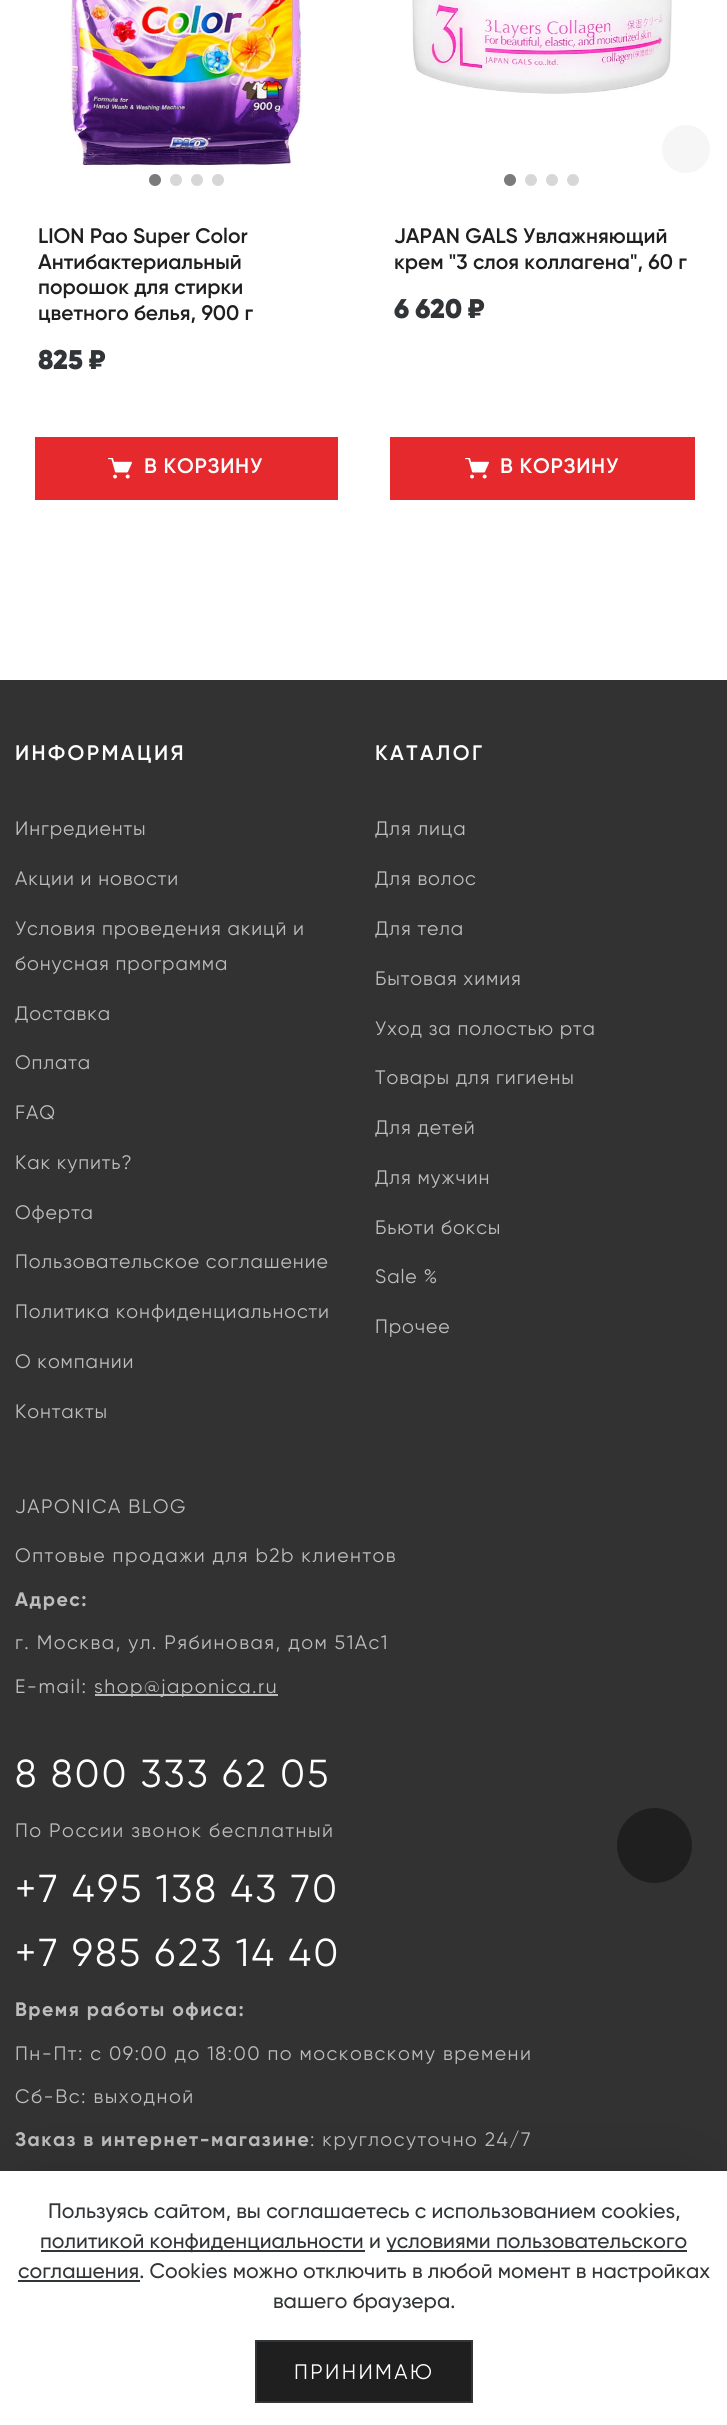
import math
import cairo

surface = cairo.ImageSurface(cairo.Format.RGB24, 727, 2425)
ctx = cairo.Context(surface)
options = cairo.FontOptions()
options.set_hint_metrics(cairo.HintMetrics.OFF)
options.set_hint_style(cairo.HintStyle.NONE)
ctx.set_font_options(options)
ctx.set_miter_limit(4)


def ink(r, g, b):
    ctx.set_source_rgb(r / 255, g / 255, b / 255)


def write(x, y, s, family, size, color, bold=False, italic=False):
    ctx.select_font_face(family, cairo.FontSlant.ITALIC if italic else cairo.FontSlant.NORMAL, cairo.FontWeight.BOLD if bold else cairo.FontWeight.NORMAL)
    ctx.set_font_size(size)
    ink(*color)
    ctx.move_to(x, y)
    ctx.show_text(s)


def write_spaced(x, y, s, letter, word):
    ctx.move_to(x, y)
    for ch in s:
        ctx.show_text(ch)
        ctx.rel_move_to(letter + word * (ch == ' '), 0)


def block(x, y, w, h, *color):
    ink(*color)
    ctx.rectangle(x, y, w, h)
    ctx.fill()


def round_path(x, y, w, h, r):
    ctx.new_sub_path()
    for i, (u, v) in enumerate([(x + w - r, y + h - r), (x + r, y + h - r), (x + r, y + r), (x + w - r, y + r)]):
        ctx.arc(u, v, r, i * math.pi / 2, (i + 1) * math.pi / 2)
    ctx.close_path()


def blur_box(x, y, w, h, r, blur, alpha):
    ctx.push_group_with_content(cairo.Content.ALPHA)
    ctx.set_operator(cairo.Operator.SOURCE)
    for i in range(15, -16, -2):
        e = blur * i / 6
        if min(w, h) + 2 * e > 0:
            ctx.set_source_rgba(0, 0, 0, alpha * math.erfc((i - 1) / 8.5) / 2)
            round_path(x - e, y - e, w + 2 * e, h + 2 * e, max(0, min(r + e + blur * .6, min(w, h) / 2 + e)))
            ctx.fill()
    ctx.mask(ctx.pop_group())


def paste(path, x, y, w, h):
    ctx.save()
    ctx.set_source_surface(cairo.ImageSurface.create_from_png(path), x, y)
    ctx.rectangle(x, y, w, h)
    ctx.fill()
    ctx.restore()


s1 = dict(family="Gilroy SemiBold", size=21, color=(31, 31, 31))
s2 = dict(family="Gilroy Black", size=27, color=(49, 53, 55))
s3 = dict(family="Gilroy Medium", size=21, color=(49, 53, 55))

ink(255, 255, 255)
ctx.paint()
ink(246, 246, 246)
ctx.arc(686, 149, 24, 0, 2 * math.pi)
ctx.fill()
paste("pic1.png", 69, 0, 234, 165)
ink(123, 123, 123)
ctx.arc(155, 180, 6, 0, 2 * math.pi)
ctx.fill()
ink(215, 215, 215)
ctx.arc(176, 180, 6, 0, 2 * math.pi)
ctx.fill()
ctx.arc(197, 180, 6, 0, 2 * math.pi)
ctx.fill()
ctx.arc(218, 180, 6, 0, 2 * math.pi)
ctx.fill()
write(38, 243, "LION Pao Super Color", **s1)
write(38, 269, "Антибактериальный", **s1)
write(38, 294, "порошок для стирки", **s1)
write(38, 320, "цветного белья, 900 г", **s1)
write(38, 369, "825 ₽", **s2)
block(35, 437, 303, 63, 230, 41, 45)
paste("pic2.png", 108, 458, 24, 21)
ctx.select_font_face("Gilroy SemiBold")
ctx.set_font_size(21)
ink(255, 255, 255)
write_spaced(144, 473, "В КОРЗИНУ", 0.75, 0)
paste("pic3.png", 412, 0, 260, 94)
ink(123, 123, 123)
ctx.arc(510, 180, 6, 0, 2 * math.pi)
ctx.fill()
ink(215, 215, 215)
ctx.arc(531, 180, 6, 0, 2 * math.pi)
ctx.fill()
ctx.arc(552, 180, 6, 0, 2 * math.pi)
ctx.fill()
ctx.arc(573, 180, 6, 0, 2 * math.pi)
ctx.fill()
write(394, 243, "JAPAN GALS Увлажняющий", **s1)
write(394, 269, "крем \"3 слоя коллагена\", 60 г", **s1)
write(394, 318, "6 620 ₽", **s2)
block(390, 437, 305, 63, 230, 41, 45)
paste("pic2.png", 465, 458, 24, 21)
ctx.select_font_face("Gilroy SemiBold")
ctx.set_font_size(21)
ink(255, 255, 255)
write_spaced(500, 473, "В КОРЗИНУ", 0.75, 0)
block(0, 680, 727, 1491, 50, 50, 50)
ink(255, 255, 255)
write_spaced(15, 760, "ИНФОРМАЦИЯ", 2.4, 0)
ctx.select_font_face("Gilroy")
ctx.set_font_size(19.5)
ink(189, 189, 189)
write_spaced(15, 835, "Ингредиенты", 0.9, 0)
write_spaced(15, 885, "Акции и новости", 0.9, 0)
write_spaced(15, 935, "Условия проведения акицй и", 0.9, 0)
write_spaced(15, 970, "бонусная программа", 0.9, 0)
write_spaced(15, 1020, "Доставка", 0.9, 0)
write_spaced(15, 1069, "Оплата", 0.9, 0)
write_spaced(15, 1119, "FAQ", 0.9, 0)
write_spaced(15, 1169, "Как купить?", 0.9, 0)
write_spaced(15, 1219, "Оферта", 0.9, 0)
write_spaced(15, 1268, "Пользовательское соглашение", 0.9, 0)
write_spaced(15, 1318, "Политика конфиденциальности", 0.9, 0)
write_spaced(15, 1368, "О компании", 0.9, 0)
write_spaced(15, 1418, "Контакты", 0.9, 0)
ctx.select_font_face("Gilroy SemiBold")
ctx.set_font_size(21)
ink(255, 255, 255)
write_spaced(375, 760, "КАТАЛОГ", 2.4, 0)
ctx.select_font_face("Gilroy")
ctx.set_font_size(19.5)
ink(189, 189, 189)
write_spaced(375, 835, "Для лица", 0.9, 0)
write_spaced(375, 885, "Для волос", 0.9, 0)
write_spaced(375, 935, "Для тела", 0.9, 0)
write_spaced(375, 985, "Бытовая химия", 0.9, 0)
write_spaced(375, 1035, "Уход за полостью рта", 0.9, 0)
write_spaced(375, 1084, "Товары для гигиены", 0.9, 0)
write_spaced(375, 1134, "Для детей", 0.9, 0)
write_spaced(375, 1184, "Для мужчин", 0.9, 0)
write_spaced(375, 1234, "Бьюти боксы", 0.9, 0)
write_spaced(375, 1283, "Sale %", 0.9, 0)
write_spaced(375, 1333, "Прочее", 0.9, 0)
write_spaced(15, 1513, "JAPONICA BLOG", 1.5, 0)
write_spaced(15, 1562, "Оптовые продажи для b2b клиентов", 1.5, 0)
ctx.select_font_face("Gilroy", cairo.FontSlant.NORMAL, cairo.FontWeight.BOLD)
write_spaced(15, 1606, "Адрес:", 1.5, 0)
ctx.select_font_face("Gilroy")
write_spaced(15, 1649, "г. Москва, ул. Рябиновая, дом 51Ас1", 1.5, 0)
write_spaced(15, 1693, "E-mail:", 1.5, 0)
block(95, 1694, 183, 2, 189, 189, 189)
write_spaced(94, 1693, "shop@japonica.ru", 1.5, 0)
ctx.set_font_size(39)
ink(255, 255, 255)
write_spaced(15, 1787, "8 800 333 62 05", 2.4, 0)
ctx.set_font_size(19.5)
ink(189, 189, 189)
write_spaced(15, 1837, "По России звонок бесплатный", 1.5, 0)
ctx.set_font_size(39)
ink(255, 255, 255)
write_spaced(15, 1902, "+7 495 138 43 70", 2.4, 0)
write_spaced(15, 1966, "+7 985 623 14 40", 2.4, 0)
ctx.select_font_face("Gilroy", cairo.FontSlant.NORMAL, cairo.FontWeight.BOLD)
ctx.set_font_size(19.5)
ink(189, 189, 189)
write_spaced(15, 2016, "Время работы офиса:", 1.5, 0)
ctx.select_font_face("Gilroy")
write_spaced(15, 2060, "Пн-Пт: с 09:00 до 18:00 по московскому времени", 1.5, 0)
write_spaced(15, 2103, "Сб-Вс: выходной", 1.5, 0)
ctx.select_font_face("Gilroy", cairo.FontSlant.NORMAL, cairo.FontWeight.BOLD)
write_spaced(15, 2146, "Заказ в интернет-магазине", 1.5, 0)
ctx.select_font_face("Gilroy")
write_spaced(310, 2146, ": круглосуточно 24/7", 1.5, 0)
ink(31, 31, 31)
ctx.new_path()
ctx.arc(654.5, 1845.5, 37.5, 0, 2 * math.pi)
ctx.fill()
ink(0, 0, 0)
blur_box(38, 2193, 652, 180, 0, 37.5, 0.25)
block(0, 2171, 727, 254, 255, 255, 255)
write(48, 2218, "Пользуясь сайтом, вы соглашаетесь с использованием cookies,", **s3)
block(41, 2250, 324, 2, 49, 53, 55)
write(40, 2248, "политикой конфиденциальности и", **s3)
block(387, 2250, 300, 2, 49, 53, 55)
write(386, 2248, "условиями пользовательского", **s3)
block(18, 2280, 122, 2, 49, 53, 55)
write(18, 2278, "соглашения. Cookies можно отключить в любой момент в настройках", **s3)
write(273, 2308, "вашего браузера.", **s3)
ink(31, 31, 31)
ctx.rectangle(256, 2341, 216, 61)
ctx.fill_preserve()
ink(49, 53, 55)
ctx.stroke()
ctx.select_font_face("Gilroy")
ink(255, 255, 255)
write_spaced(294, 2379, "ПРИНИМАЮ", 2.4, 0)
surface.write_to_png("screenshot.png")
